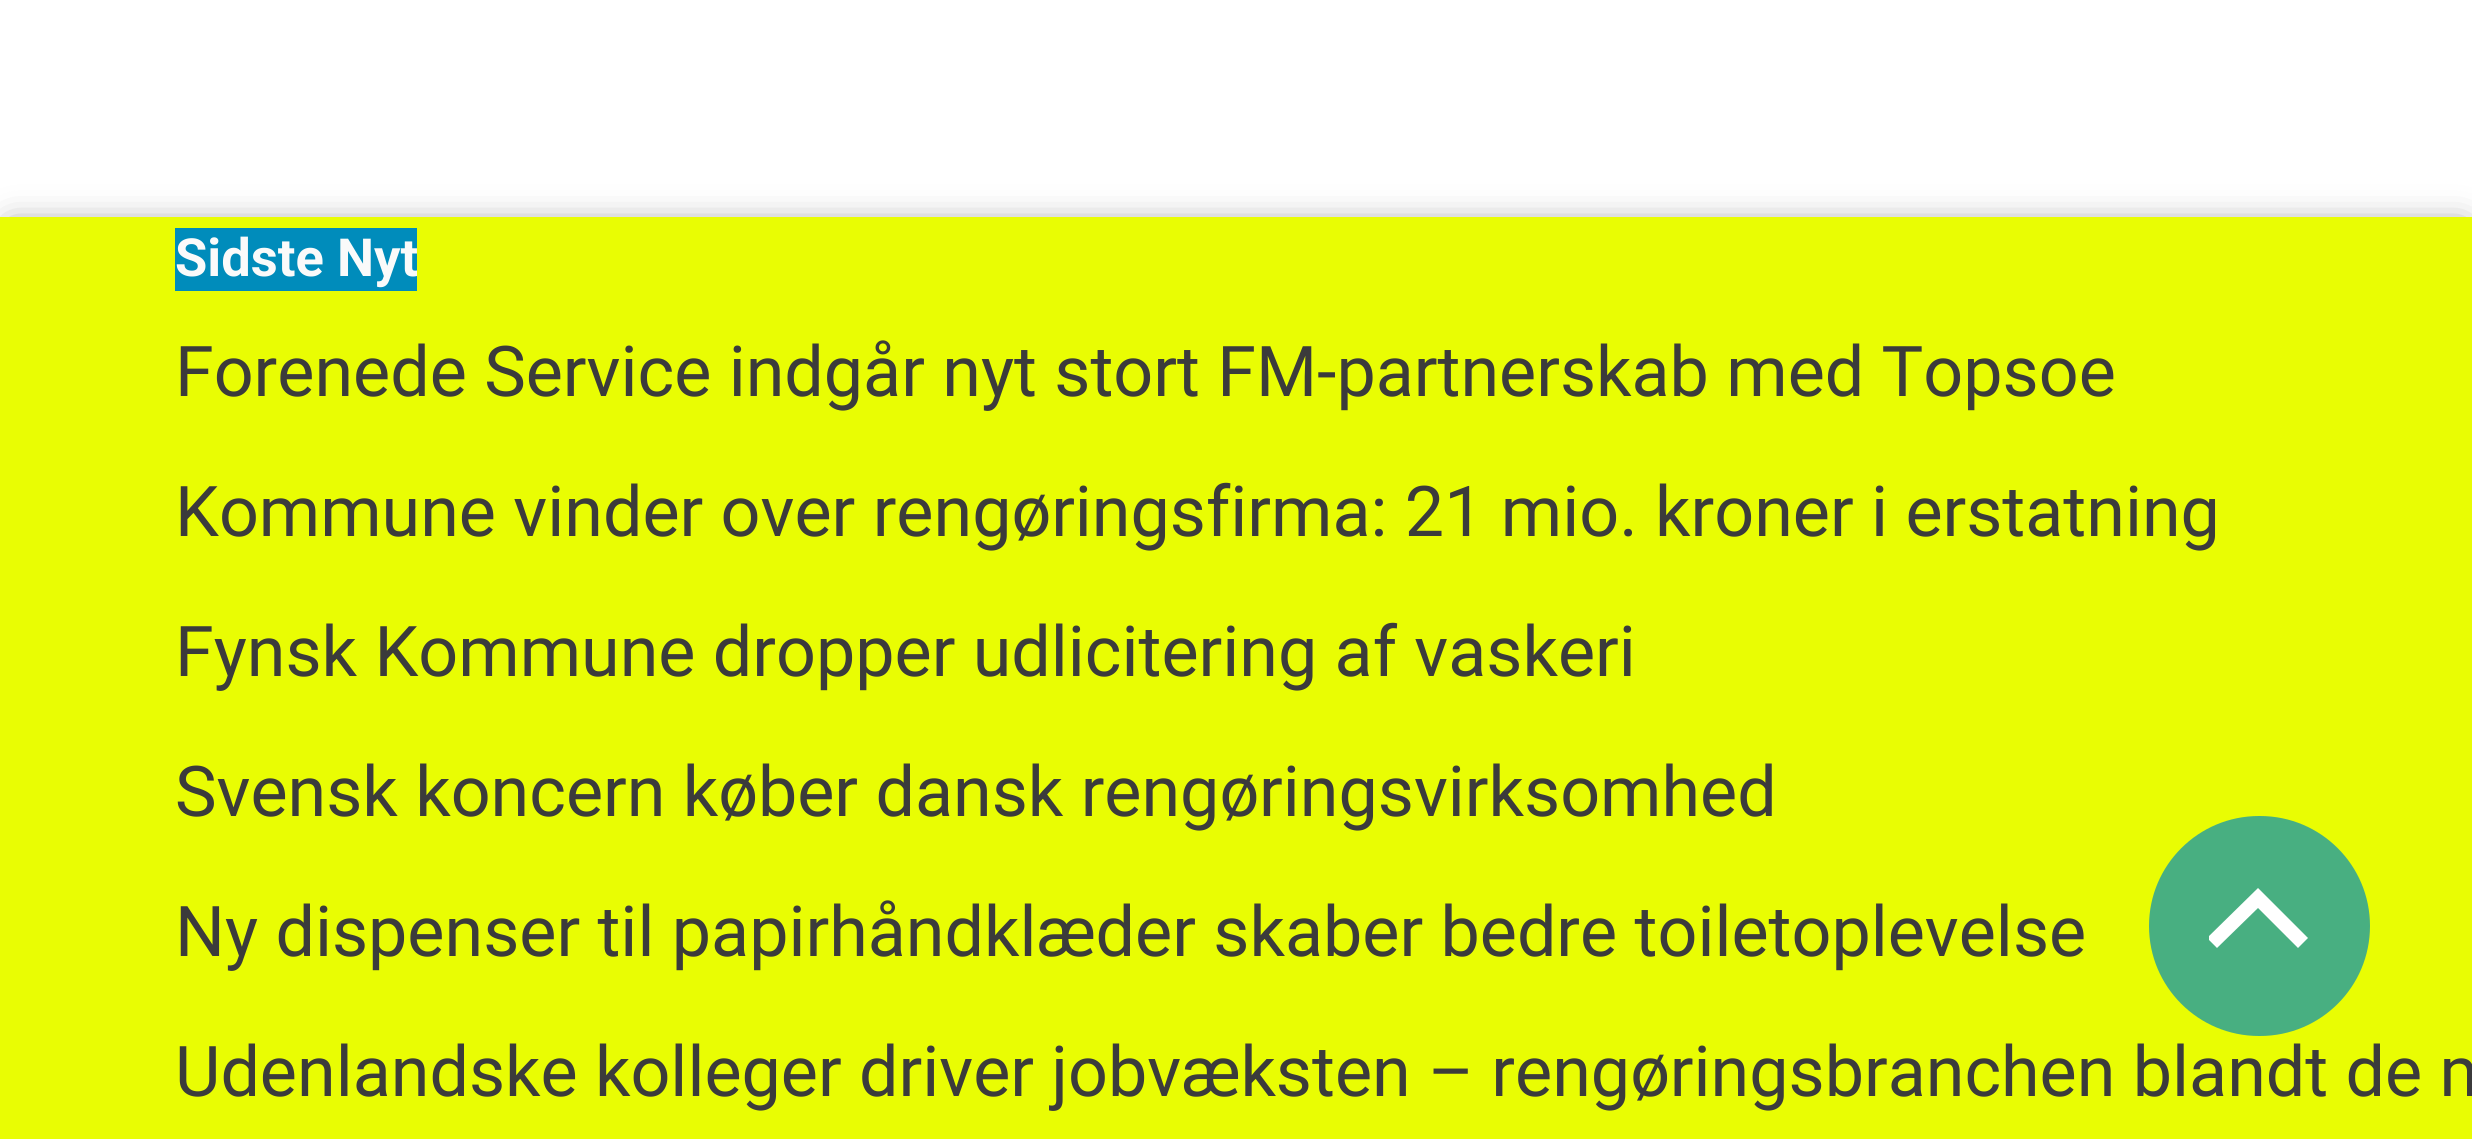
import math
import cairo

surface = cairo.ImageSurface(cairo.Format.RGB24, 2472, 1139)
ctx = cairo.Context(surface)
options = cairo.FontOptions()
options.set_hint_metrics(cairo.HintMetrics.OFF)
options.set_hint_style(cairo.HintStyle.NONE)
ctx.set_font_options(options)
ctx.set_miter_limit(4)


def ink(r, g, b):
    ctx.set_source_rgb(r / 255, g / 255, b / 255)


def write(x, y, s, family, size, color, bold=False, italic=False):
    ctx.select_font_face(family, cairo.FontSlant.ITALIC if italic else cairo.FontSlant.NORMAL, cairo.FontWeight.BOLD if bold else cairo.FontWeight.NORMAL)
    ctx.set_font_size(size)
    ink(*color)
    ctx.move_to(x, y)
    ctx.show_text(s)


def block(x, y, w, h, *color):
    ink(*color)
    ctx.rectangle(x, y, w, h)
    ctx.fill()


def round_path(x, y, w, h, r):
    ctx.new_sub_path()
    for i, (u, v) in enumerate([(x + w - r, y + h - r), (x + r, y + h - r), (x + r, y + r), (x + w - r, y + r)]):
        ctx.arc(u, v, r, i * math.pi / 2, (i + 1) * math.pi / 2)
    ctx.close_path()


def blur_box(x, y, w, h, r, blur, alpha):
    ctx.push_group_with_content(cairo.Content.ALPHA)
    ctx.set_operator(cairo.Operator.SOURCE)
    for i in range(15, -16, -2):
        e = blur * i / 6
        if min(w, h) + 2 * e > 0:
            ctx.set_source_rgba(0, 0, 0, alpha * math.erfc((i - 1) / 8.5) / 2)
            round_path(x - e, y - e, w + 2 * e, h + 2 * e, max(0, min(r + e + blur * .6, min(w, h) / 2 + e)))
            ctx.fill()
    ctx.mask(ctx.pop_group())


s1 = dict(family="Roboto", size=52.5, color=(250, 250, 250), bold=True)
s2 = dict(family="Roboto", size=70, color=(59, 59, 59))

ink(255, 255, 255)
ctx.paint()
ink(0, 0, 0)
blur_box(11, 228, 2453, 903, 0, 17.5, 0.5)
block(0, 217, 2472, 922, 233, 253, 3)
block(175, 228, 242, 63, 0, 140, 187)
write(175, 276, "Sidste Nyt", **s1)
write(175, 396, "Forenede Service indgår nyt stort FM-partnerskab med Topsoe", **s2)
write(175, 536, "Kommune vinder over rengøringsfirma: 21 mio. kroner i erstatning", **s2)
write(175, 676, "Fynsk Kommune dropper udlicitering af vaskeri", **s2)
write(175, 816, "Svensk koncern køber dansk rengøringsvirksomhed", **s2)
write(175, 956, "Ny dispenser til papirhåndklæder skaber bedre toiletoplevelse", **s2)
write(175, 1096, "Udenlandske kolleger driver jobvæksten – rengøringsbranchen blandt de m", **s2)
ink(72, 175, 129)
round_path(2149, 816, 221, 220, 110)
ctx.fill()
ctx.save()
ctx.rectangle(2209, 872, 105, 91)
ctx.clip()
ink(255, 255, 255)
ctx.new_path()
ctx.move_to(2308, 938)
ctx.line_to(2258, 888)
ctx.line_to(2207, 938)
ctx.line_to(2217, 948)
ctx.line_to(2258, 908)
ctx.line_to(2298, 948)
ctx.close_path()
ctx.fill()
ctx.restore()
surface.write_to_png("screenshot.png")
